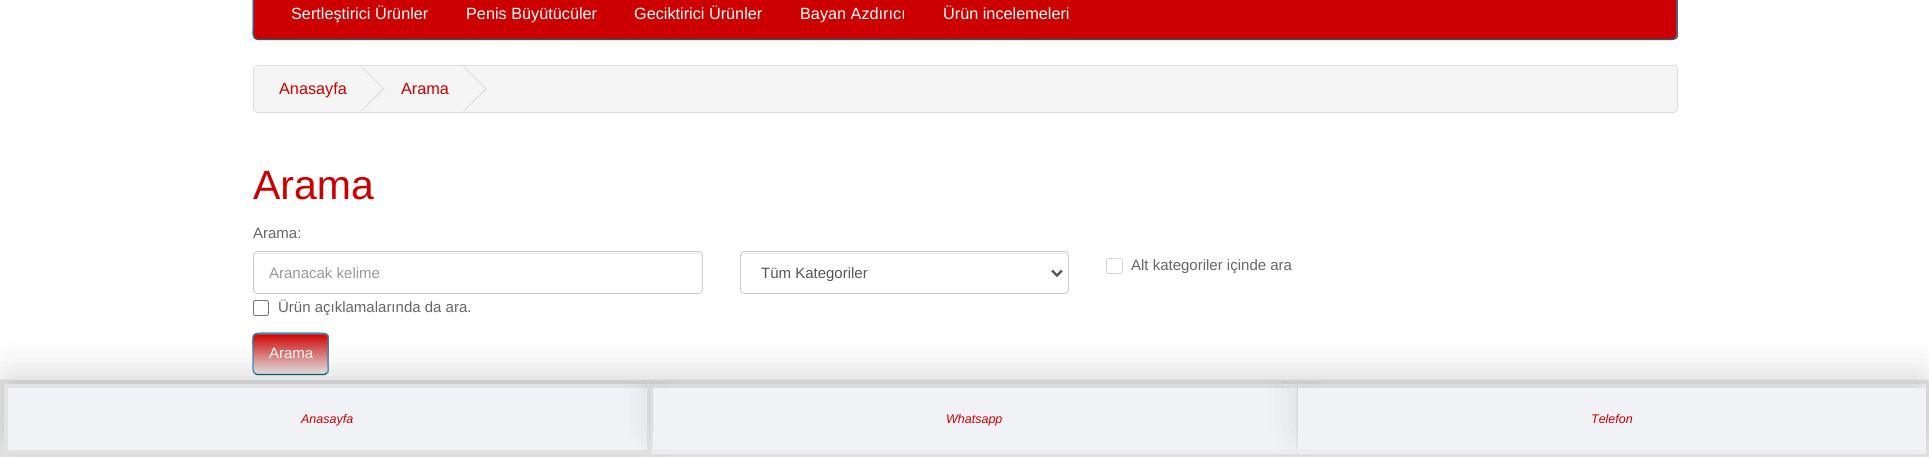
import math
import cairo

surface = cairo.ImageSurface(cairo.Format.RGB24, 1929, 457)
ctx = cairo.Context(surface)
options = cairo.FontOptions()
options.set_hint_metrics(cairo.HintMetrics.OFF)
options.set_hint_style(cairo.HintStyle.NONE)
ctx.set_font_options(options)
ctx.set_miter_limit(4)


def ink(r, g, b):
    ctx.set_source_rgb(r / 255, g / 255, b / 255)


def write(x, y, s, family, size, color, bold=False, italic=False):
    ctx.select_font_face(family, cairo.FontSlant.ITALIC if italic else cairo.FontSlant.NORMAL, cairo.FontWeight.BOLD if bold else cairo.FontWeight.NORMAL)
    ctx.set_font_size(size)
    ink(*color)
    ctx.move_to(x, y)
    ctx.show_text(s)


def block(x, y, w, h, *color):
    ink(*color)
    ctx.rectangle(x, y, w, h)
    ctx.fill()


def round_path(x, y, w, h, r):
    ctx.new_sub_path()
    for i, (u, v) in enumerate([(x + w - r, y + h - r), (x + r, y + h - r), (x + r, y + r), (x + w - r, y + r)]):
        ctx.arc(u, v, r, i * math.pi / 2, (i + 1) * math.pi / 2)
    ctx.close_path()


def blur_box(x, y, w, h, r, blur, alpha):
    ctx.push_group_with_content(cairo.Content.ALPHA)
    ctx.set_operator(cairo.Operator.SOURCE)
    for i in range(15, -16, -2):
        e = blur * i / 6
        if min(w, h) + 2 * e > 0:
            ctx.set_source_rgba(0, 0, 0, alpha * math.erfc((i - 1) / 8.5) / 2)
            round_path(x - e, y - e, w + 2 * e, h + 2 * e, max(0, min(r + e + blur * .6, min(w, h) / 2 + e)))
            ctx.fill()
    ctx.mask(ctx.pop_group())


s1 = dict(family="Liberation Sans", size=16.25, color=(255, 255, 255))
s2 = dict(family="Liberation Sans", size=16.25, color=(204, 0, 0))
s3 = dict(family="Liberation Sans", size=41, color=(204, 0, 0))
s4 = dict(family="Liberation Sans", size=15, color=(102, 102, 102))
s5 = dict(family="Liberation Sans", size=15, color=(153, 153, 153))
s6 = dict(family="Liberation Sans", size=15, color=(85, 85, 85))
s7 = dict(family="Liberation Sans", size=15, color=(255, 255, 255))
s8 = dict(family="Liberation Sans", size=12.5, color=(204, 0, 0), italic=True)

ink(255, 255, 255)
ctx.paint()
ink(34, 154, 200)
round_path(253, -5, 1425, 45, 5)
ctx.fill()
ctx.save()
round_path(253, -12, 1425, 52, 5)
ctx.clip()
block(253, 0, 1425, 39, 204, 0, 0)
ctx.restore()
ctx.new_path()
ctx.move_to(1675.5, 38)
ctx.line_to(1672.5, 39.5)
ctx.line_to(257.5, 39.5)
ctx.line_to(254.5, 38)
ink(20, 94, 122)
ctx.set_line_width(1.2)
ctx.stroke()
ctx.new_path()
ctx.move_to(254.5, 38)
ctx.curve_to(252, 35.5, 253, 30, 253, 28)
ctx.line_to(253, -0.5)
ctx.curve_to(253, -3.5, 251.5, -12, 257.5, -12)
ctx.line_to(1672.5, -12)
ctx.curve_to(1678.5, -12, 1677, -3.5, 1677, -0.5)
ctx.line_to(1677, 28)
ctx.curve_to(1677, 30, 1678, 35.5, 1675.5, 38)
ink(31, 144, 187)
ctx.stroke()
write(291, 19, "Sertleştirici Ürünler", **s1)
write(466, 19, "Penis Büyütücüler", **s1)
write(634, 19, "Geciktirici Ürünler", **s1)
write(800, 19, "Bayan Azdırıcı", **s1)
write(943, 19, "Ürün incelemeleri", **s1)
ink(245, 245, 245)
round_path(253.5, 65.5, 1424, 47, 4.5)
ctx.fill_preserve()
ink(221, 221, 221)
ctx.set_line_width(1)
ctx.stroke()
write(279, 94, "Anasayfa", **s2)
ink(221, 221, 221)
ctx.new_path()
ctx.move_to(360.5, 66.5)
ctx.line_to(361.5, 66)
ctx.line_to(384.5, 89)
ctx.line_to(383.5, 89.5)
ctx.close_path()
ctx.fill()
ctx.new_path()
ctx.move_to(360.5, 111)
ctx.line_to(383.5, 88)
ctx.line_to(384.5, 89)
ctx.line_to(361.5, 111.5)
ctx.close_path()
ctx.fill()
write(401, 94, "Arama", **s2)
ink(221, 221, 221)
ctx.new_path()
ctx.move_to(463, 66.5)
ctx.line_to(464, 66)
ctx.line_to(487, 89)
ctx.line_to(486, 89.5)
ctx.close_path()
ctx.fill()
ctx.new_path()
ctx.move_to(463, 111)
ctx.line_to(486, 88)
ctx.line_to(487, 89)
ctx.line_to(464, 111.5)
ctx.close_path()
ctx.fill()
write(253, 199, "Arama", **s3)
write(253, 238, "Arama:", **s4)
ink(236, 236, 236)
ctx.new_path()
ctx.move_to(258, 254)
ctx.line_to(698, 254)
ctx.curve_to(700, 254, 701, 255, 701, 258)
ctx.curve_to(701, 255, 700, 253, 697, 253)
ctx.line_to(258, 253)
ctx.line_to(256, 254)
ctx.line_to(255, 255)
ctx.line_to(254, 258)
ctx.curve_to(254, 255, 255, 254, 258, 254)
ctx.close_path()
ctx.fill()
round_path(253.5, 251.5, 449, 42, 4.5)
ink(204, 204, 204)
ctx.stroke()
write(269, 278, "Aranacak kelime", **s5)
ink(236, 236, 236)
ctx.new_path()
ctx.move_to(745, 254)
ctx.line_to(1064, 254)
ctx.curve_to(1066, 254, 1068, 255, 1068, 258)
ctx.line_to(1068, 257)
ctx.curve_to(1068, 255, 1066, 253, 1064, 253)
ctx.line_to(745, 253)
ctx.curve_to(743, 253, 741, 255, 741, 257)
ctx.line_to(741, 258)
ctx.curve_to(741, 255, 743, 254, 745, 254)
ctx.close_path()
ctx.fill()
round_path(740.5, 251.5, 328, 42, 4.5)
ink(204, 204, 204)
ctx.stroke()
ctx.new_path()
ctx.move_to(1052, 270.5)
ctx.line_to(1057, 275.5)
ctx.line_to(1062, 270.5)
ink(85, 85, 85)
ctx.set_line_width(2.5)
ctx.stroke()
write(761, 278, "Tüm Kategoriler", **s6)
round_path(1106.5, 258.5, 16, 15, 2)
ink(214, 214, 214)
ctx.set_line_width(1)
ctx.stroke()
write(1131, 270, "Alt kategoriler içinde ara", **s4)
round_path(253.5, 300.5, 15, 15, 2)
ink(118, 118, 118)
ctx.stroke()
write(278, 312, "Ürün açıklamalarında da ara.", **s4)
ink(0, 0, 0)
blur_box(253, 334, 76, 42, 5, 1, 0.05)
ink(34, 154, 200)
round_path(253, 333, 76, 42, 5)
ctx.fill()
ctx.save()
round_path(253, 333, 76, 42, 5)
ctx.clip()
gradient = cairo.LinearGradient(291, 334, 291, 374)
gradient.add_color_stop_rgba(0, 0.8, 0, 0, 1)
gradient.add_color_stop_rgba(1, 0.933, 0.933, 0.933, 1)
ctx.set_source(gradient)
ctx.rectangle(253, 334, 76, 40)
ctx.fill()
ctx.restore()
ctx.set_source_rgba(1, 1, 1, 0.2)
ctx.new_path()
ctx.move_to(258, 335)
ctx.line_to(324, 335)
ctx.curve_to(326, 335, 328, 337, 328, 339)
ctx.curve_to(328, 331, 318, 334, 313, 334)
ctx.line_to(269, 334)
ctx.curve_to(264, 334, 254, 331, 254, 339)
ctx.curve_to(254, 337, 255, 335, 258, 335)
ctx.close_path()
ctx.fill()
ctx.new_path()
ctx.move_to(327, 373)
ctx.line_to(324, 374.5)
ctx.line_to(257, 374.5)
ctx.line_to(254.5, 373)
ink(20, 94, 122)
ctx.set_line_width(1.2)
ctx.stroke()
ctx.new_path()
ctx.move_to(254.5, 373)
ctx.curve_to(252.5, 371, 253, 367, 253, 364.5)
ctx.line_to(253, 354)
ctx.curve_to(253, 332.5, 249, 333, 268.5, 333)
ctx.line_to(312.5, 333)
ctx.curve_to(332.5, 333, 328, 332.5, 328, 354)
ctx.line_to(328, 364.5)
ctx.curve_to(328, 367, 329, 371, 327, 373)
ink(31, 144, 187)
ctx.stroke()
write(269, 358, "Arama", **s7)
ink(0, 0, 0)
blur_box(6, 373, 1918, 66, 0, 19, 0.15)
block(0, 379, 1929, 1, 226, 226, 226)
block(8, 384, 1918, 70, 240, 242, 245)
ctx.rectangle(2, 382, 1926, 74)
ink(226, 226, 226)
ctx.set_line_width(4)
ctx.stroke()
ctx.save()
ctx.rectangle(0, 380, 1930, 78)
ctx.clip()
ctx.set_fill_rule(cairo.FillRule.EVEN_ODD)
ctx.new_path()
ctx.move_to(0, 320)
ctx.line_to(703, 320)
ctx.line_to(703, 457)
ctx.line_to(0, 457)
ctx.close_path()
ctx.move_to(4, 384)
ctx.line_to(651, 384)
ctx.line_to(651, 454)
ctx.line_to(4, 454)
ctx.close_path()
ctx.clip()
ink(0, 0, 0)
blur_box(10, 378, 635, 57, 0, 19, 0.15)
ctx.restore()
ctx.rectangle(6, 386, 643, 66)
ctx.stroke()
write(301, 423, "Anasayfa", **s8)
ctx.save()
ctx.rectangle(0, 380, 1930, 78)
ctx.clip()
ink(0, 0, 0)
blur_box(658, 381, 632, 50, 0, 19, 0.15)
ctx.restore()
block(653, 388, 643, 62, 240, 242, 245)
block(651, 388, 1, 62, 226, 226, 226)
write(946, 423, "Whatsapp", **s8)
ctx.save()
ctx.rectangle(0, 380, 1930, 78)
ctx.clip()
ink(0, 0, 0)
blur_box(1303, 381, 617, 50, 0, 19, 0.15)
ctx.restore()
block(1298, 388, 628, 62, 240, 242, 245)
block(1296, 388, 1, 62, 226, 226, 226)
write(1591, 423, "Telefon", **s8)
surface.write_to_png("screenshot.png")
